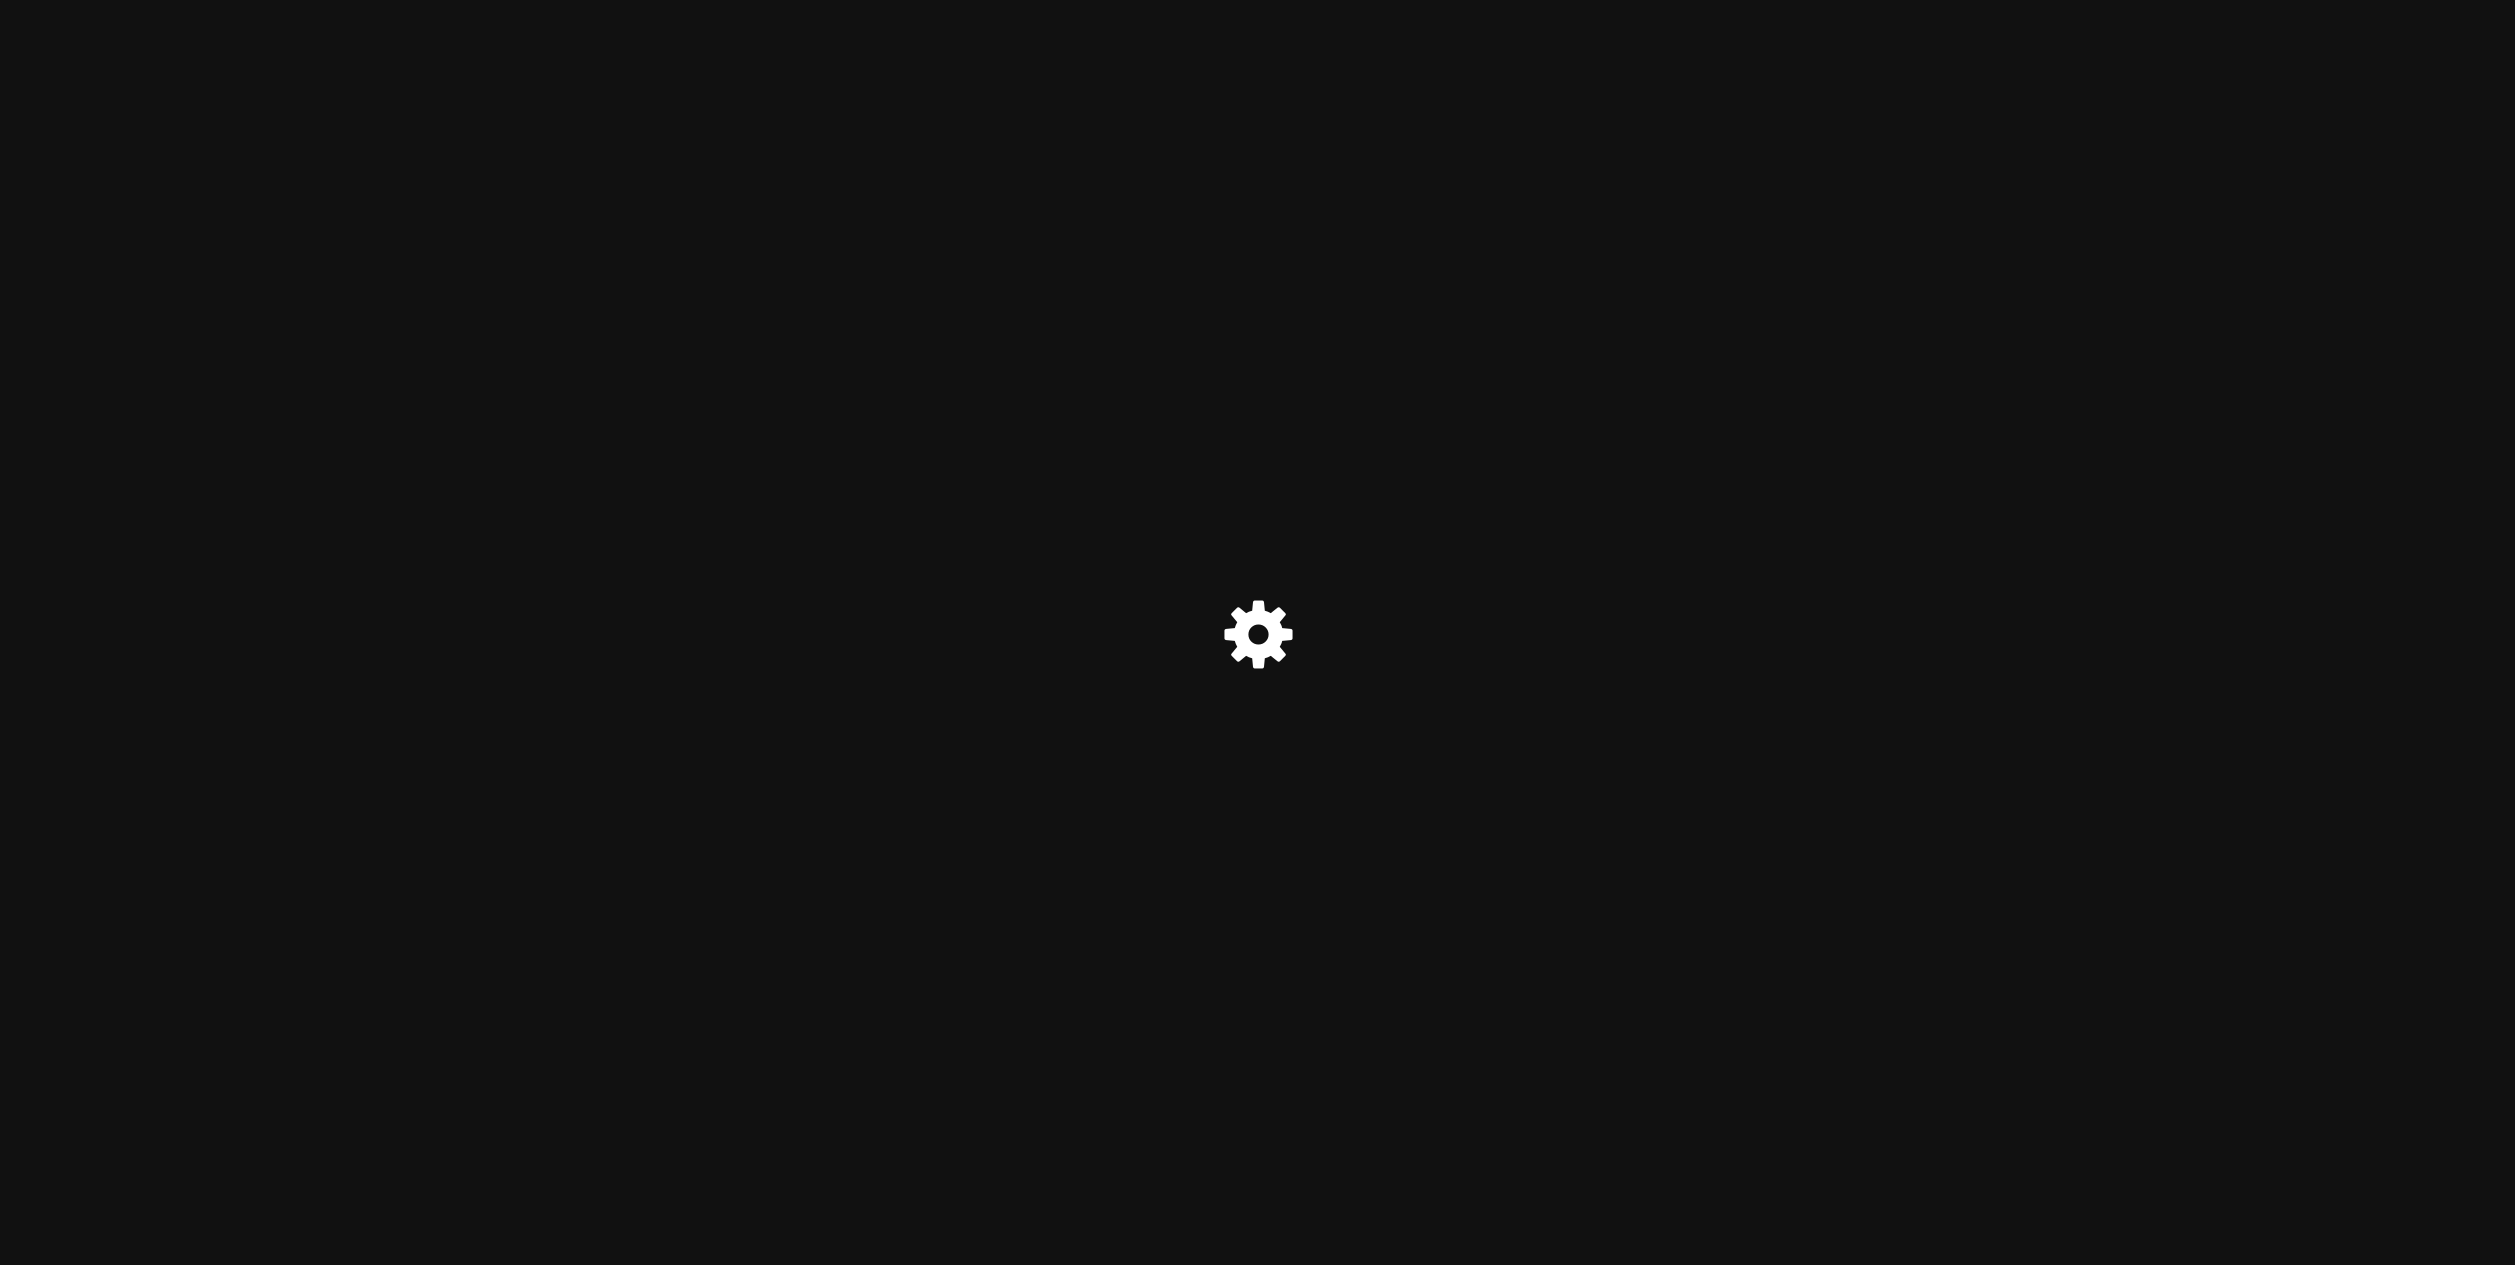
import math
import cairo

surface = cairo.ImageSurface(cairo.Format.RGB24, 2515, 1265)
ctx = cairo.Context(surface)
options = cairo.FontOptions()
options.set_hint_metrics(cairo.HintMetrics.OFF)
options.set_hint_style(cairo.HintStyle.NONE)
ctx.set_font_options(options)
ctx.set_miter_limit(4)


def ink(r, g, b):
    ctx.set_source_rgb(r / 255, g / 255, b / 255)


def paste(path, x, y, w, h):
    ctx.save()
    ctx.set_source_surface(cairo.ImageSurface.create_from_png(path), x, y)
    ctx.rectangle(x, y, w, h)
    ctx.fill()
    ctx.restore()


ink(17, 17, 17)
ctx.paint()
paste("pic1.png", 1224, 600, 69, 69)
surface.write_to_png("screenshot.png")
